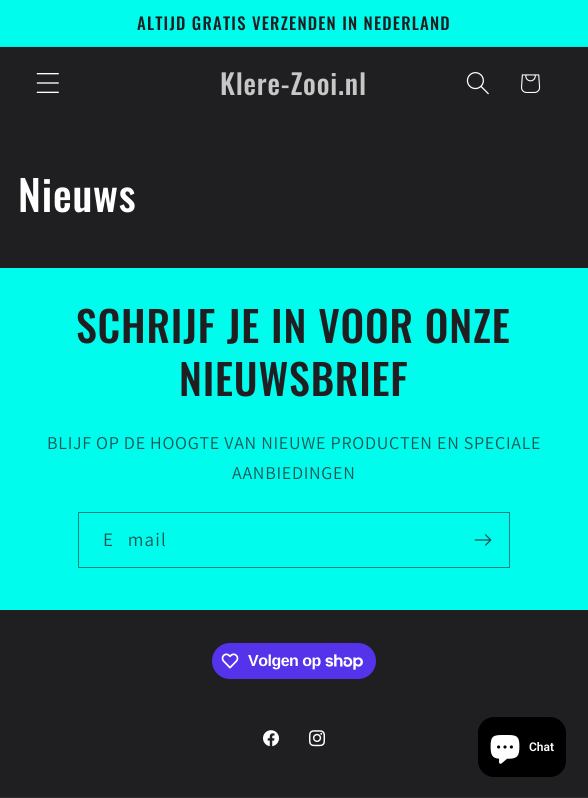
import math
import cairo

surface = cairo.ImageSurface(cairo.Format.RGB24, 588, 798)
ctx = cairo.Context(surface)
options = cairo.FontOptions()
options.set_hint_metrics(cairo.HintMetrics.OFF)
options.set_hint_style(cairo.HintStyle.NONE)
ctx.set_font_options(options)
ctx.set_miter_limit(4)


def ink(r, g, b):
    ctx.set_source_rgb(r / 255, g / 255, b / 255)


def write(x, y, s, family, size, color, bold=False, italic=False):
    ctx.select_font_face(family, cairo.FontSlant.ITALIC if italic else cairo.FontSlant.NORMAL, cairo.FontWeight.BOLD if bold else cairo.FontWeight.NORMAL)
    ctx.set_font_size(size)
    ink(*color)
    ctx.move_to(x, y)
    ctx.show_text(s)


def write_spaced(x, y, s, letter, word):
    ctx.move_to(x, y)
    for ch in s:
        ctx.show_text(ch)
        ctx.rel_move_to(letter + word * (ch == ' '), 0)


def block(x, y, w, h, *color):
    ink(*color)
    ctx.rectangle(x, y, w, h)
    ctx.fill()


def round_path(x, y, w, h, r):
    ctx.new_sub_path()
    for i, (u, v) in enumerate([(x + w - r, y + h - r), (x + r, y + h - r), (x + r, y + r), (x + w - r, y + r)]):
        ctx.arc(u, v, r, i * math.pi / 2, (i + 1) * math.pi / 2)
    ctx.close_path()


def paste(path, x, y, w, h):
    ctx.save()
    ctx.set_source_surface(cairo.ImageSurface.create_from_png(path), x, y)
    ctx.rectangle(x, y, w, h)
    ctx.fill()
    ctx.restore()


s1 = dict(family="Roboto SemiBold", size=12, color=(255, 255, 255))

ink(31, 31, 33)
ctx.paint()
block(0, 0, 588, 46, 0, 252, 237)
block(0, 46, 588, 1, 2, 234, 221)
ctx.select_font_face("Oswald Medium")
ctx.set_font_size(16.75)
ink(31, 31, 33)
write_spaced(137, 30, "ALTIJD GRATIS VERZENDEN IN NEDERLAND", 1.2, 0)
paste("pic1.png", 36, 73, 23, 20)
ctx.set_font_size(28)
ink(199, 199, 200)
write_spaced(220, 95, "Klere-Zooi.nl", 0.8, 0)
paste("pic2.png", 466, 72, 23, 23)
paste("pic3.png", 521, 74, 20, 19)
ctx.set_font_size(42)
ink(255, 255, 255)
write_spaced(18, 212, "Nieuws", 0.8, 0)
block(0, 268, 588, 342, 0, 252, 237)
ink(31, 31, 33)
write_spaced(76, 343, "SCHRIJF JE IN VOOR ONZE", 0.8, 0)
write_spaced(179, 396, "NIEUWSBRIEF", 0.8, 0)
ctx.select_font_face("Assistant")
ctx.set_font_size(18)
ink(23, 86, 84)
write_spaced(47, 449, "BLIJF OP DE HOOGTE VAN NIEUWE PRODUCTEN EN SPECIALE", 0.72, 0)
write_spaced(232, 479, "AANBIEDINGEN", 0.72, 0)
ctx.rectangle(78.5, 512.5, 431, 55)
ink(17, 130, 125)
ctx.set_line_width(1)
ctx.stroke()
ctx.set_font_size(19)
ink(23, 86, 84)
write_spaced(103, 546, "E‑mail", 1.2, 0)
paste("pic4.png", 474, 534, 18, 12)
ink(84, 51, 235)
round_path(212, 643, 164, 36, 18)
ctx.fill()
paste("pic5.png", 221, 653, 18, 16)
ctx.select_font_face("Liberation Sans", cairo.FontSlant.NORMAL, cairo.FontWeight.BOLD)
ctx.set_font_size(16)
ink(255, 255, 255)
write_spaced(248, 666, "Volgen op", -0.5, 0)
paste("pic6.png", 325, 654, 38, 16)
paste("pic7.png", 263, 730, 16, 17)
paste("pic8.png", 309, 730, 16, 17)
block(0, 797, 588, 1, 49, 49, 51)
ink(0, 0, 0)
round_path(478, 717, 88, 60, 16)
ctx.fill()
paste("pic9.png", 490, 735, 30, 29)
write(529, 751, "Chat", **s1)
surface.write_to_png("screenshot.png")
